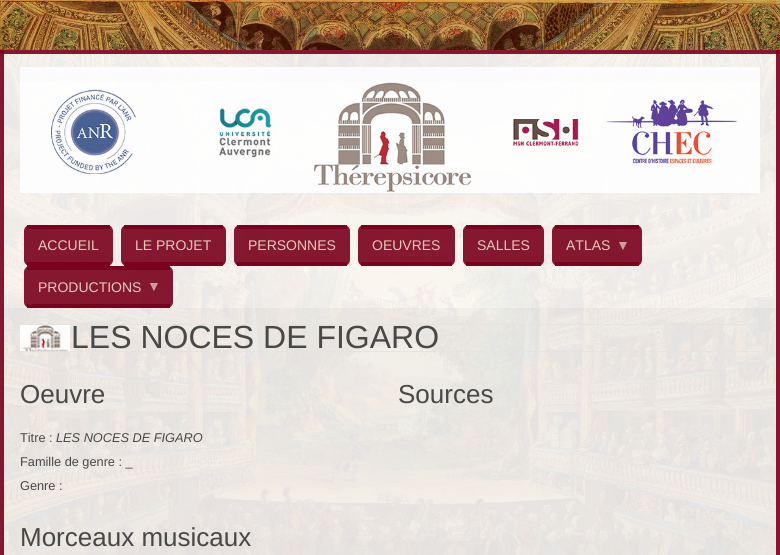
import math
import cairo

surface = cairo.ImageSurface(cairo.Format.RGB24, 780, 555)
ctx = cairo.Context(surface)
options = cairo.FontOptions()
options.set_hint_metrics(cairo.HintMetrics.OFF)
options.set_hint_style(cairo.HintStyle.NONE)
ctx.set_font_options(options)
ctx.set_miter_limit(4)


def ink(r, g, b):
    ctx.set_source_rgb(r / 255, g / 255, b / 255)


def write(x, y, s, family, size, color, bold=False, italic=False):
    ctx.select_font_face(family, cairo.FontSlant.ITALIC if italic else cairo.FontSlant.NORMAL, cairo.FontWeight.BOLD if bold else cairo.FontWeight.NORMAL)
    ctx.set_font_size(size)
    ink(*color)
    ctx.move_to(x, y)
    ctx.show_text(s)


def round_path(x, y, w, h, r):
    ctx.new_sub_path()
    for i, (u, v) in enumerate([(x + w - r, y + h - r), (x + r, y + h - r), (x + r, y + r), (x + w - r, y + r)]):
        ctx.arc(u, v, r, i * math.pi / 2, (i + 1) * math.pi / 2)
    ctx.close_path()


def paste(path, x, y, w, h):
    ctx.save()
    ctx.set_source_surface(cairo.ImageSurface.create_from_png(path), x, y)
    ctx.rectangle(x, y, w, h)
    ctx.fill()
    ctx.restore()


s1 = dict(family="Liberation Sans", size=14, color=(230, 202, 183))
s2 = dict(family="Liberation Sans", size=14, color=(206, 158, 149))
s3 = dict(family="Liberation Sans", size=32, color=(72, 72, 71))
s4 = dict(family="Liberation Sans", size=26, color=(72, 72, 71))
s5 = dict(family="Liberation Sans", size=12.75, color=(72, 72, 71))
s6 = dict(family="Liberation Sans", size=12.75, color=(72, 72, 71), italic=True)

ink(255, 255, 255)
ctx.paint()
paste("pic1.png", 0, 0, 780, 555)
ctx.set_source_rgba(1, 1, 1, 0.9)
ctx.rectangle(0, 50, 780, 175)
ctx.fill()
ctx.set_source_rgba(0.475, 0, 0.11, 0.9)
ctx.rectangle(0, 50, 780, 4)
ctx.fill()
ctx.rectangle(776, 50, 4, 175)
ctx.fill()
ctx.rectangle(0, 50, 4, 175)
ctx.fill()
paste("pic2.png", 20, 67, 740, 126)
ctx.set_source_rgba(1, 1, 1, 0.9)
ctx.rectangle(0, 225, 780, 83)
ctx.fill()
ctx.set_source_rgba(0.475, 0, 0.11, 0.9)
ctx.rectangle(776, 225, 4, 83)
ctx.fill()
ctx.rectangle(0, 225, 4, 83)
ctx.fill()
round_path(24, 225, 89, 41, 6)
ctx.fill()
ctx.rectangle(27, 225, 83, 4)
ctx.fill()
ctx.rectangle(27, 262, 83, 4)
ctx.fill()
write(38, 250, "ACCUEIL", **s1)
ctx.set_source_rgba(0.475, 0, 0.11, 0.9)
round_path(121, 225, 105, 41, 6)
ctx.fill()
ctx.rectangle(124, 225, 99, 4)
ctx.fill()
ctx.rectangle(124, 262, 99, 4)
ctx.fill()
write(135, 250, "LE PROJET", **s1)
ctx.set_source_rgba(0.475, 0, 0.11, 0.9)
round_path(234, 225, 116, 41, 6)
ctx.fill()
ctx.rectangle(237, 225, 110, 4)
ctx.fill()
ctx.rectangle(237, 262, 110, 4)
ctx.fill()
write(248, 250, "PERSONNES", **s1)
ctx.set_source_rgba(0.475, 0, 0.11, 0.9)
round_path(358, 225, 97, 41, 6)
ctx.fill()
ctx.rectangle(361, 225, 91, 4)
ctx.fill()
ctx.rectangle(361, 262, 91, 4)
ctx.fill()
write(372, 250, "OEUVRES", **s1)
ctx.set_source_rgba(0.475, 0, 0.11, 0.9)
round_path(463, 225, 81, 41, 6)
ctx.fill()
ctx.rectangle(466, 225, 75, 4)
ctx.fill()
ctx.rectangle(466, 262, 75, 4)
ctx.fill()
write(477, 250, "SALLES", **s1)
ctx.set_source_rgba(0.475, 0, 0.11, 0.9)
round_path(552, 225, 90, 41, 6)
ctx.fill()
ctx.rectangle(555, 225, 84, 4)
ctx.fill()
ctx.rectangle(555, 262, 84, 4)
ctx.fill()
write(566, 250, "ATLAS", **s1)
write(616, 250, "▼", **s2)
ctx.set_source_rgba(0.475, 0, 0.11, 0.9)
round_path(24, 266, 149, 42, 6)
ctx.fill()
ctx.rectangle(27, 266, 143, 4)
ctx.fill()
ctx.rectangle(27, 304, 143, 4)
ctx.fill()
write(38, 292, "PRODUCTIONS", **s1)
write(147, 291, "▼", **s2)
ctx.set_source_rgba(0.969, 0.969, 0.969, 0.9)
ctx.rectangle(0, 308, 780, 247)
ctx.fill()
ctx.set_source_rgba(0.475, 0, 0.11, 0.9)
ctx.rectangle(776, 308, 4, 247)
ctx.fill()
ctx.rectangle(0, 308, 4, 247)
ctx.fill()
paste("pic3.png", 20, 325, 50, 27)
ctx.set_source_rgba(0.902, 0.894, 0.871, 0.9)
ctx.rectangle(20, 324, 740, 1)
ctx.fill()
ctx.rectangle(20, 351, 740, 1)
ctx.fill()
write(71, 348, "LES NOCES DE FIGARO", **s3)
write(20, 403, "Oeuvre", **s4)
write(20, 442, "Titre :", **s5)
write(56, 442, "LES NOCES DE FIGARO", **s6)
write(20, 466, "Famille de genre : _", **s5)
write(20, 490, "Genre :", **s5)
write(398, 403, "Sources", **s4)
write(20, 546, "Morceaux musicaux", **s4)
surface.write_to_png("screenshot.png")
